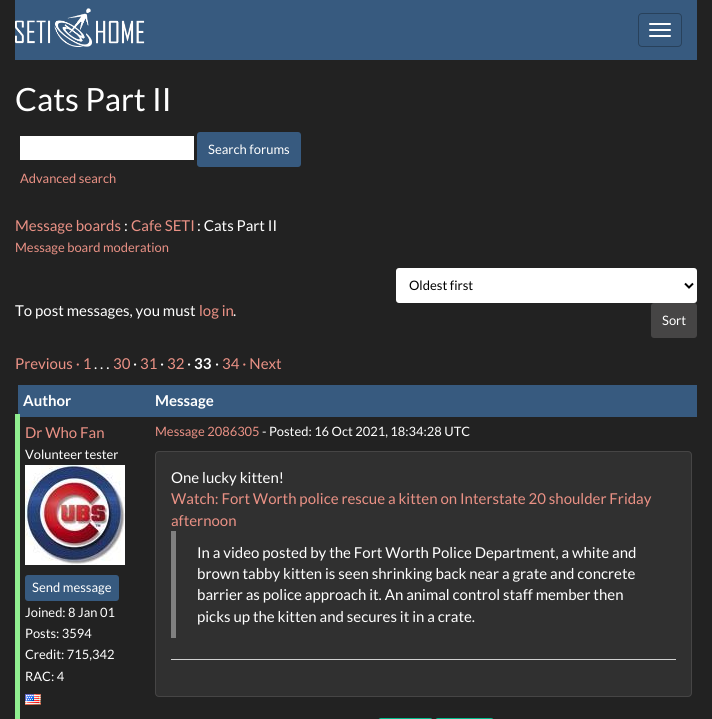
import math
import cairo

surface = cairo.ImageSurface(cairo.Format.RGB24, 712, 719)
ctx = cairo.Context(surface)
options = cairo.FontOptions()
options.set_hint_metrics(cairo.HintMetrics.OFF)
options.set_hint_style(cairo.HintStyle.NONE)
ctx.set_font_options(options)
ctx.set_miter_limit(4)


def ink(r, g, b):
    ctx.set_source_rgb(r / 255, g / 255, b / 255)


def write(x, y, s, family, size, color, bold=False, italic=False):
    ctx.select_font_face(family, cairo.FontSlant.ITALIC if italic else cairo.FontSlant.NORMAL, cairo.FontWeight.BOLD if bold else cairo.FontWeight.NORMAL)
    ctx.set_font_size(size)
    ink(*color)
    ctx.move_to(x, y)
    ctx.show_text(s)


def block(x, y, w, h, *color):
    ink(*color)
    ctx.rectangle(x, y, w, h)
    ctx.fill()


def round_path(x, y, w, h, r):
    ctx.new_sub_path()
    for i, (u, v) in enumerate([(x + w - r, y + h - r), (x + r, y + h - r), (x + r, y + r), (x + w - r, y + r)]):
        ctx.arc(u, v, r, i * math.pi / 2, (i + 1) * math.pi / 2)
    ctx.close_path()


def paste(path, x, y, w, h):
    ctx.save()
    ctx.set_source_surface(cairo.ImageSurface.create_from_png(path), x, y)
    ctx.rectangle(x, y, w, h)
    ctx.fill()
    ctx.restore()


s1 = dict(family="Lato", size=32, color=(255, 255, 255))
s2 = dict(family="Lato", size=13, color=(255, 255, 255))
s3 = dict(family="Lato", size=12.9, color=(234, 145, 133))
s4 = dict(family="Lato", size=15, color=(234, 145, 133))
s5 = dict(family="Lato", size=15, color=(255, 255, 255))
s6 = dict(family="Lato", size=13, color=(0, 0, 0))
s7 = dict(family="Lato", size=15, color=(255, 255, 255), bold=True)
s8 = dict(family="Lato", size=12.9, color=(255, 255, 255))

ink(34, 34, 34)
ctx.paint()
block(15, 0, 682, 60, 55, 90, 127)
paste("pic1.png", 15, 8, 130, 39)
round_path(638.5, 13.5, 43, 33, 3.5)
ink(40, 65, 91)
ctx.set_line_width(1)
ctx.stroke()
ink(255, 255, 255)
round_path(649, 23, 22, 2, 1)
ctx.fill()
round_path(649, 29, 22, 2, 1)
ctx.fill()
round_path(649, 35, 22, 2, 1)
ctx.fill()
write(15, 111, "Cats Part II", **s1)
block(20, 136, 174, 24, 255, 255, 255)
ink(55, 90, 127)
round_path(198, 133, 102, 33, 2)
ctx.fill_preserve()
ctx.set_line_width(2)
ctx.stroke()
write(208, 154, "Search forums", **s2)
write(20, 183, "Advanced search", **s3)
write(15, 231, "Message boards", **s4)
write(124, 231, ":", **s5)
write(131, 231, "Cafe SETI", **s4)
write(197, 231, ": Cats Part II", **s5)
write(15, 252, "Message board moderation", **s3)
write(15, 316, "To post messages, you must", **s5)
write(199, 316, "log in", **s4)
write(233, 316, ".", **s5)
round_path(396, 268, 301, 35, 3)
ctx.fill()
ctx.new_path()
ctx.move_to(685, 283.5)
ctx.line_to(689, 287.5)
ctx.line_to(693, 283.5)
ink(0, 0, 0)
ctx.stroke()
write(409, 290, "Oldest first", **s6)
ink(70, 69, 69)
round_path(652, 304, 44, 33, 2)
ctx.fill_preserve()
ctx.stroke()
write(662, 325, "Sort", **s2)
write(15, 369, "Previous · 1", **s4)
write(113, 369, "30", **s4)
write(133, 369, "·", **s5)
write(140, 369, "31", **s4)
write(160, 369, "·", **s5)
write(167, 369, "32", **s4)
write(187, 369, "·", **s5)
write(194, 369, "33", **s7)
write(215, 369, "·", **s5)
write(222, 369, "34 · Next", **s4)
write(94, 369, ". . .", **s5)
block(18, 385, 679, 32, 55, 90, 127)
write(23, 406, "Author", **s7)
write(155, 406, "Message", **s7)
block(15, 414, 5, 305, 144, 238, 144)
write(25, 438, "Dr Who Fan", **s4)
write(25, 459, "Volunteer tester", **s8)
paste("pic2.png", 25, 465, 100, 100)
ink(55, 90, 127)
round_path(26, 576, 92, 24, 2)
ctx.fill_preserve()
ctx.stroke()
write(32, 592, "Send message", **s2)
write(25, 617, "Joined: 8 Jan 01", **s8)
write(25, 638, "Posts: 3594", **s8)
write(25, 659, "Credit: 715,342", **s8)
write(25, 681, "RAC: 4", **s8)
paste("pic3.png", 25, 694, 16, 11)
write(155, 436, "Message 2086305", **s3)
write(262, 436, "- Posted: 16 Oct 2021, 18:34:28 UTC", **s8)
ink(48, 48, 48)
round_path(155.5, 451.5, 536, 245, 3.5)
ctx.fill_preserve()
ink(70, 69, 69)
ctx.set_line_width(1)
ctx.stroke()
write(171, 483, "One lucky kitten!", **s5)
write(171, 504, "Watch: Fort Worth police rescue a kitten on Interstate 20 shoulder Friday", **s4)
write(171, 526, "afternoon", **s4)
block(171, 531, 5, 107, 128, 128, 128)
write(197, 558, "In a video posted by the Fort Worth Police Department, a white and", **s5)
write(197, 579, "brown tabby kitten is seen shrinking back near a grate and concrete", **s5)
write(197, 600, "barrier as police approach it. An animal control staff member then", **s5)
write(197, 622, "picks up the kitten and secures it in a crate.", **s5)
block(171, 659, 505, 1, 208, 208, 208)
round_path(379, 719, 53, 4, 2)
ink(0, 188, 140)
ctx.set_line_width(2)
ctx.stroke()
round_path(436, 719, 57, 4, 2)
ctx.stroke()
surface.write_to_png("screenshot.png")
